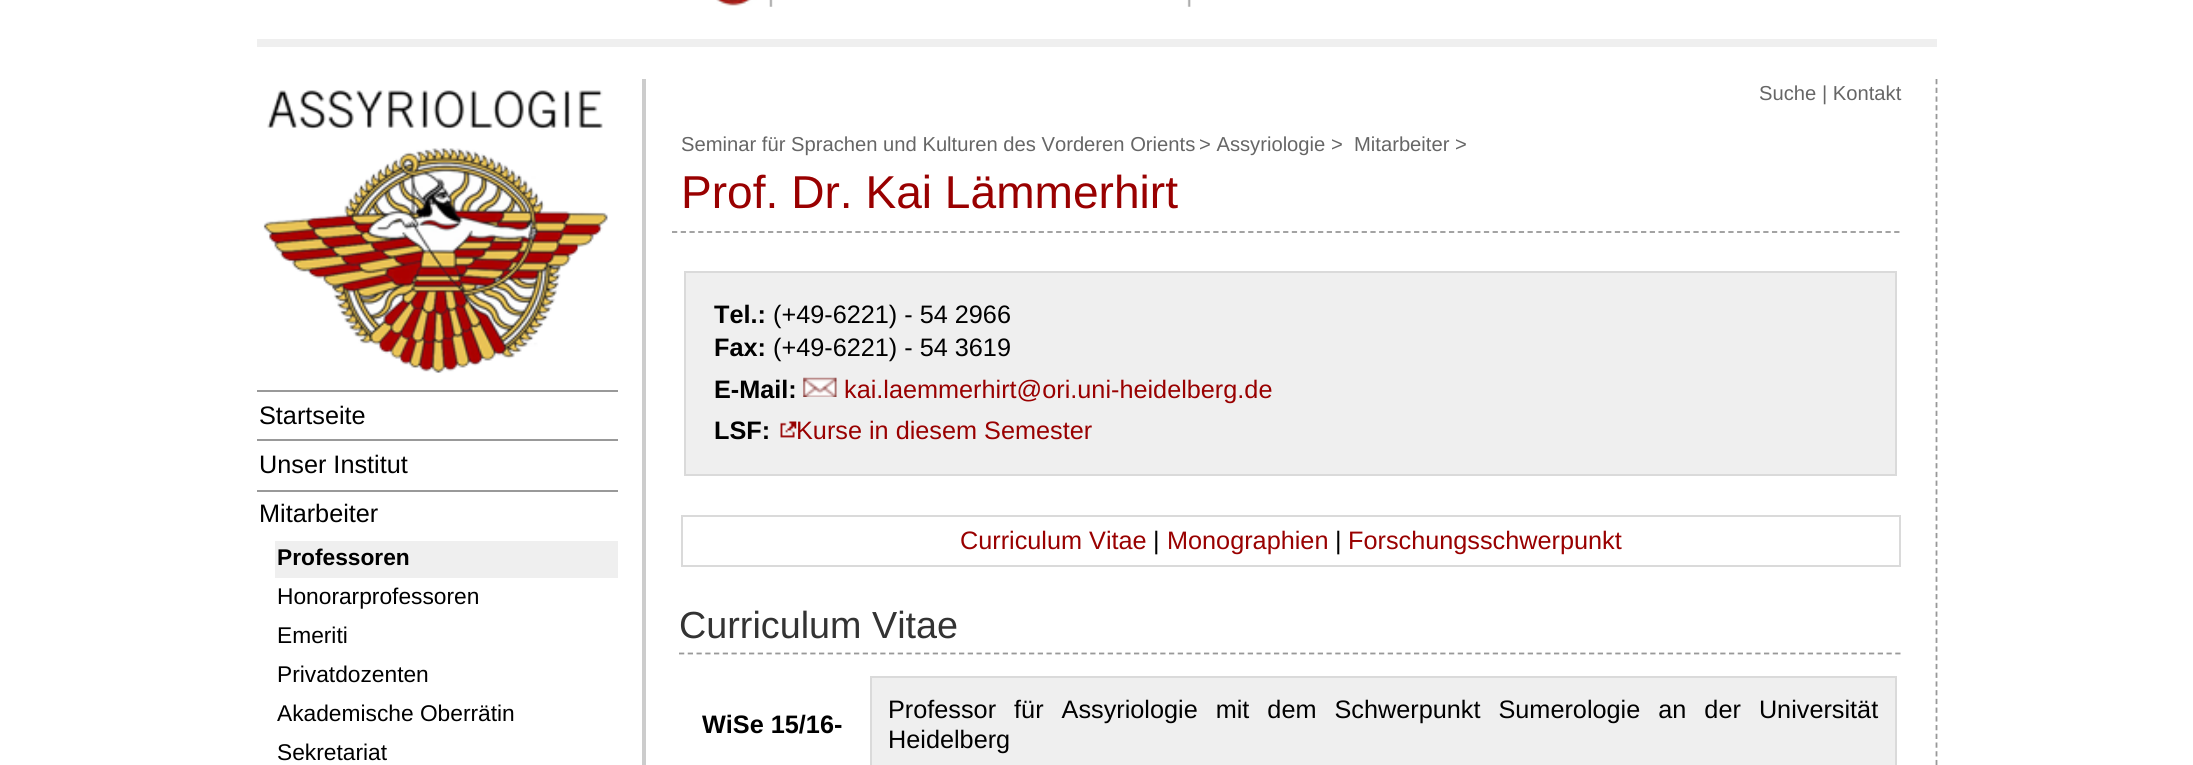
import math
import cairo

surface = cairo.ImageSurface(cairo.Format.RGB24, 2193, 765)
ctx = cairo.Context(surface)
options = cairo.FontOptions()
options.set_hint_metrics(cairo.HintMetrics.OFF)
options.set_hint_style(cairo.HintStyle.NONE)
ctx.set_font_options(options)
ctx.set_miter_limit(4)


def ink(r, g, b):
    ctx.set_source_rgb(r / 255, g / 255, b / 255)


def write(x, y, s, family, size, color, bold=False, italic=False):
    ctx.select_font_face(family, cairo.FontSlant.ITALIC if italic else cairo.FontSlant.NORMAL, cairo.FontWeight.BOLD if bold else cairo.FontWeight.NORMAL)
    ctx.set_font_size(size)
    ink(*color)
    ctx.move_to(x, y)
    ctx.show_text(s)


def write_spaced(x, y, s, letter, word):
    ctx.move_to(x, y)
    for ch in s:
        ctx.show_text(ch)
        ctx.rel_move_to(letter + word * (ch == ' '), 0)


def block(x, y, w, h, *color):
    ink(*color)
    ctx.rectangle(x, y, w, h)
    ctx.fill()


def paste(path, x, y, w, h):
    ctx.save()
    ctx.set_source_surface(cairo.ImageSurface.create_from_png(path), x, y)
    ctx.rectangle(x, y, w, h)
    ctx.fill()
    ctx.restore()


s1 = dict(family="Liberation Sans", size=25.25, color=(0, 0, 0))
s2 = dict(family="Liberation Sans", size=22.75, color=(0, 0, 0), bold=True)
s3 = dict(family="Liberation Sans", size=22.75, color=(0, 0, 0))
s4 = dict(family="Liberation Sans", size=20.2, color=(102, 102, 102))
s5 = dict(family="Liberation Sans", size=46.1, color=(153, 0, 0))
s6 = dict(family="Liberation Sans", size=25.25, color=(0, 0, 0), bold=True)
s7 = dict(family="Liberation Sans", size=25.25, color=(153, 0, 0))
s8 = dict(family="Liberation Sans", size=37.75, color=(51, 51, 51))

ink(255, 255, 255)
ctx.paint()
paste("pic1.png", 716, 0, 475, 7)
block(257, 39, 1680, 8, 239, 239, 239)
paste("pic2.png", 263, 90, 345, 283)
block(257, 390, 361, 2, 153, 153, 153)
write(259, 424, "Startseite", **s1)
block(257, 439, 361, 2, 153, 153, 153)
write(259, 473, "Unser Institut", **s1)
block(257, 490, 361, 2, 153, 153, 153)
write(259, 522, "Mitarbeiter", **s1)
block(275, 541, 343, 37, 239, 239, 239)
write(277, 565, "Professoren", **s2)
write(277, 604, "Honorarprofessoren", **s3)
write(277, 643, "Emeriti", **s3)
write(277, 682, "Privatdozenten", **s3)
write(277, 721, "Akademische Oberrätin", **s3)
write(277, 760, "Sekretariat", **s3)
ctx.new_path()
ctx.move_to(1936.5, 79)
ctx.line_to(1936.5, 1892)
ink(153, 153, 153)
ctx.set_line_width(1.8)
ctx.set_dash([5.25, 3.48])
ctx.stroke()
block(642, 79, 4, 686, 204, 204, 204)
write(1759, 100, "Suche | Kontakt", **s4)
write(681, 151, "Seminar für Sprachen und Kulturen des Vorderen Orients", **s4)
write(1199, 151, "> Assyriologie >", **s4)
write(1354, 151, "Mitarbeiter >", **s4)
ctx.new_path()
ctx.move_to(672, 232)
ctx.line_to(1900.5, 232)
ink(153, 153, 153)
ctx.stroke()
write(681, 208, "Prof. Dr. Kai Lämmerhirt", **s5)
ink(239, 239, 239)
ctx.rectangle(685, 272, 1211, 203)
ctx.fill_preserve()
ink(218, 218, 218)
ctx.set_line_width(2)
ctx.set_dash([])
ctx.stroke()
write(714, 323, "Tel.:", **s6)
write(773, 323, "(+49-6221) - 54 2966", **s1)
write(714, 356, "Fax:", **s6)
write(773, 356, "(+49-6221) - 54 3619", **s1)
write(714, 398, "E-Mail:", **s6)
paste("pic3.png", 803, 377, 34, 20)
write(844, 398, "kai.laemmerhirt@ori.uni-heidelberg.de", **s7)
write(714, 439, "LSF:", **s6)
paste("pic4.png", 780, 421, 17, 17)
write(796, 439, "Kurse in diesem Semester", **s7)
ctx.rectangle(682, 516, 1218, 50)
ink(218, 218, 218)
ctx.stroke()
write(960, 549, "Curriculum Vitae", **s7)
write(1153, 549, "|", **s1)
write(1167, 549, "Monographien", **s7)
write(1335, 549, "|", **s1)
write(1348, 549, "Forschungsschwerpunkt", **s7)
ctx.new_path()
ctx.move_to(679, 653.5)
ctx.line_to(1900.5, 653.5)
ink(153, 153, 153)
ctx.set_line_width(1.8)
ctx.set_dash([5.25, 3.5])
ctx.stroke()
write(679, 638, "Curriculum Vitae", **s8)
write(702, 733, "WiSe 15/16-", **s6)
ink(239, 239, 239)
ctx.rectangle(871, 677, 1025, 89)
ctx.fill_preserve()
ink(218, 218, 218)
ctx.set_line_width(2)
ctx.set_dash([])
ctx.stroke()
ctx.select_font_face("Liberation Sans")
ink(0, 0, 0)
write_spaced(888, 718, "Professor für Assyriologie mit dem Schwerpunkt Sumerologie an der Universität", 0, 11)
write(888, 748, "Heidelberg", **s1)
surface.write_to_png("screenshot.png")
